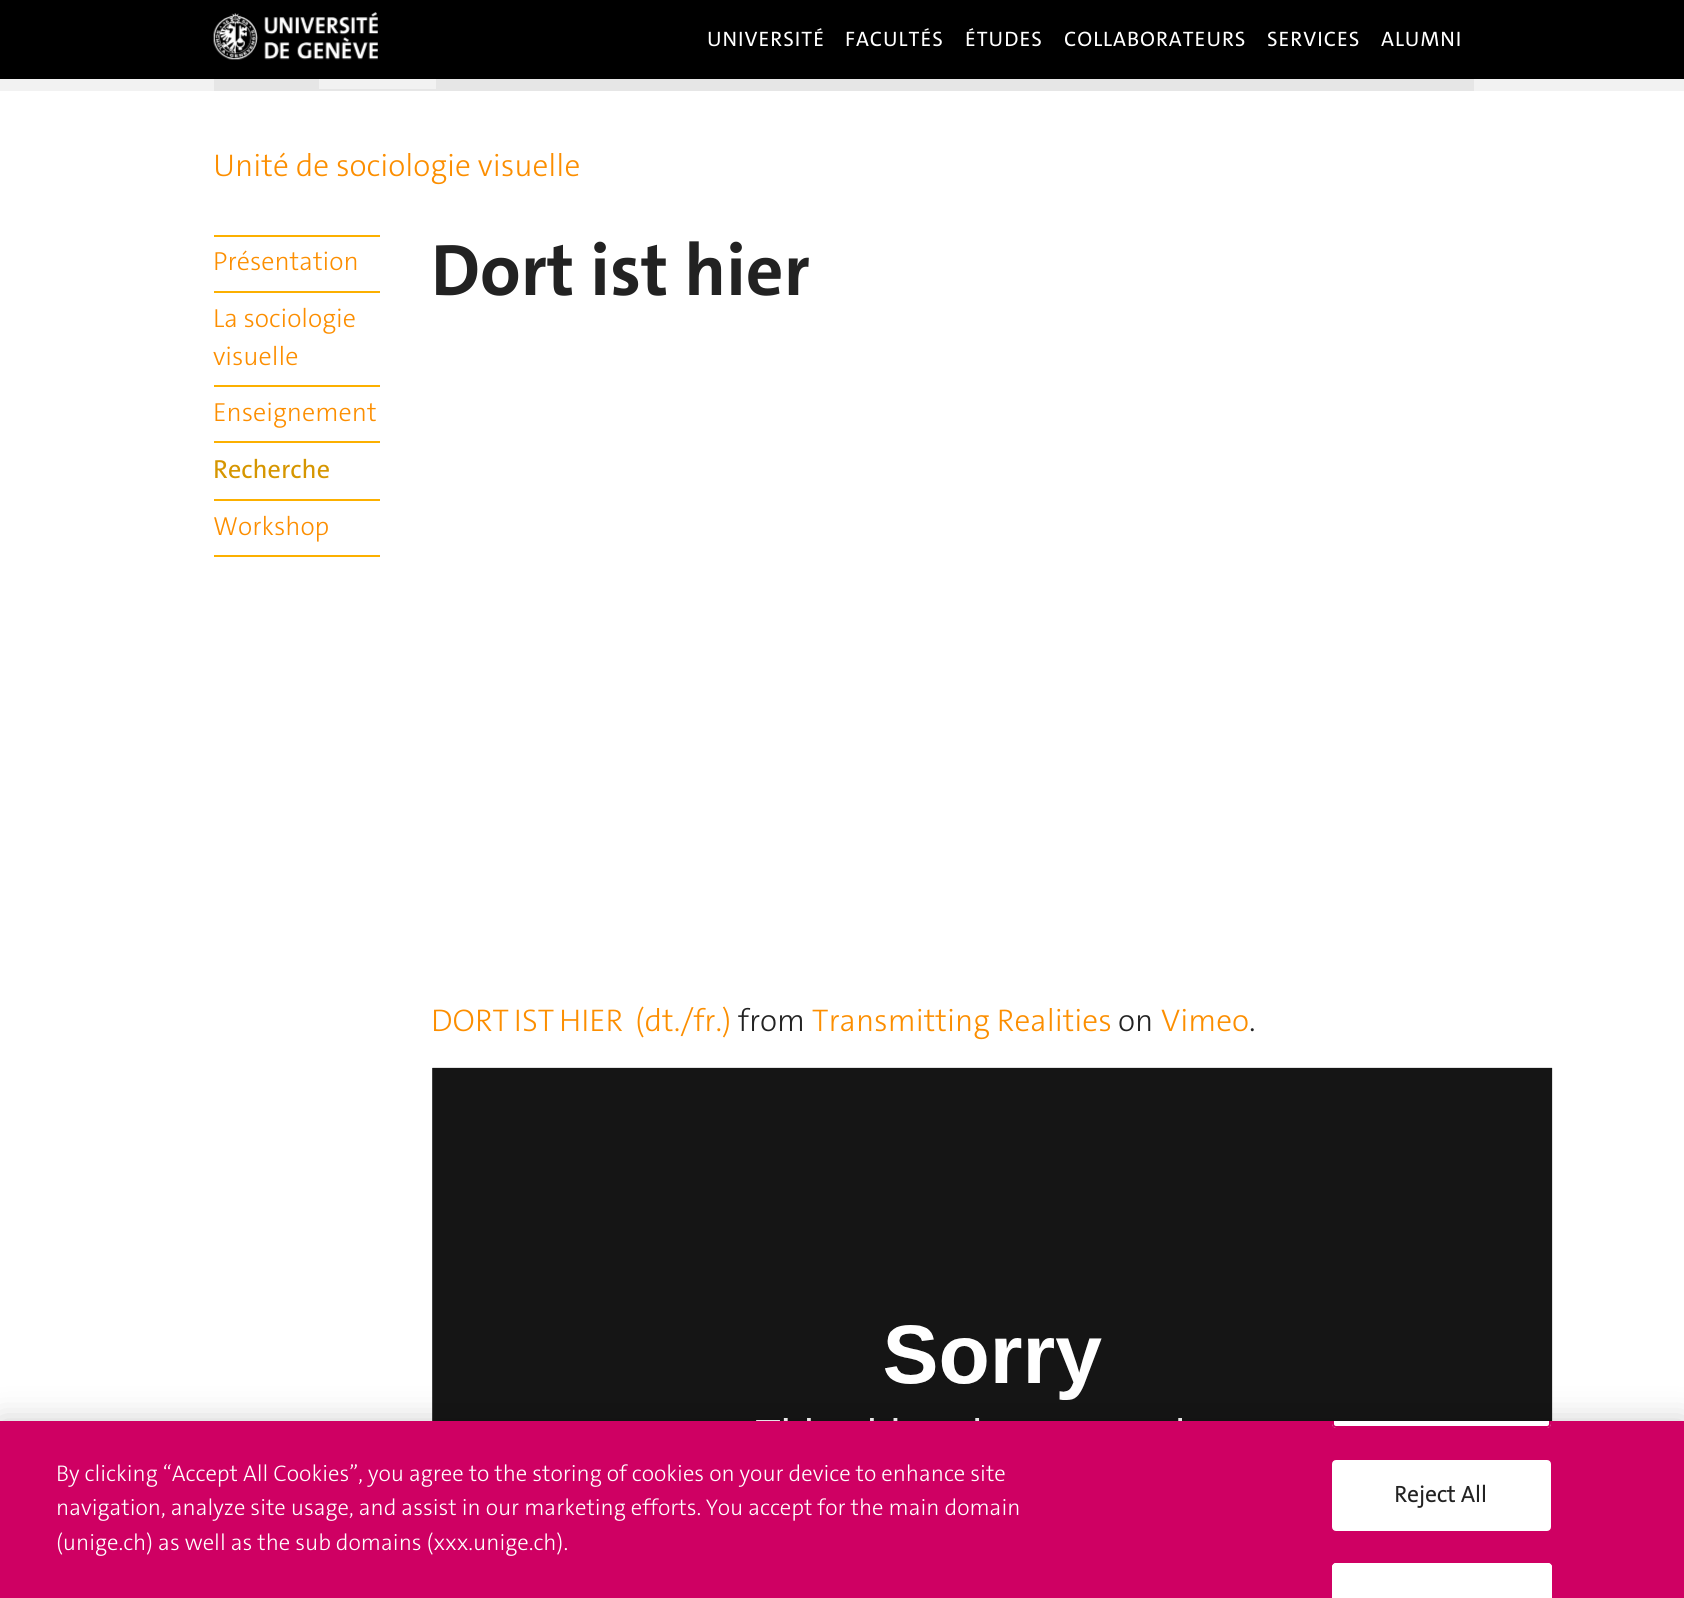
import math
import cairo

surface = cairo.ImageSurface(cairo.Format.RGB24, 1684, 1598)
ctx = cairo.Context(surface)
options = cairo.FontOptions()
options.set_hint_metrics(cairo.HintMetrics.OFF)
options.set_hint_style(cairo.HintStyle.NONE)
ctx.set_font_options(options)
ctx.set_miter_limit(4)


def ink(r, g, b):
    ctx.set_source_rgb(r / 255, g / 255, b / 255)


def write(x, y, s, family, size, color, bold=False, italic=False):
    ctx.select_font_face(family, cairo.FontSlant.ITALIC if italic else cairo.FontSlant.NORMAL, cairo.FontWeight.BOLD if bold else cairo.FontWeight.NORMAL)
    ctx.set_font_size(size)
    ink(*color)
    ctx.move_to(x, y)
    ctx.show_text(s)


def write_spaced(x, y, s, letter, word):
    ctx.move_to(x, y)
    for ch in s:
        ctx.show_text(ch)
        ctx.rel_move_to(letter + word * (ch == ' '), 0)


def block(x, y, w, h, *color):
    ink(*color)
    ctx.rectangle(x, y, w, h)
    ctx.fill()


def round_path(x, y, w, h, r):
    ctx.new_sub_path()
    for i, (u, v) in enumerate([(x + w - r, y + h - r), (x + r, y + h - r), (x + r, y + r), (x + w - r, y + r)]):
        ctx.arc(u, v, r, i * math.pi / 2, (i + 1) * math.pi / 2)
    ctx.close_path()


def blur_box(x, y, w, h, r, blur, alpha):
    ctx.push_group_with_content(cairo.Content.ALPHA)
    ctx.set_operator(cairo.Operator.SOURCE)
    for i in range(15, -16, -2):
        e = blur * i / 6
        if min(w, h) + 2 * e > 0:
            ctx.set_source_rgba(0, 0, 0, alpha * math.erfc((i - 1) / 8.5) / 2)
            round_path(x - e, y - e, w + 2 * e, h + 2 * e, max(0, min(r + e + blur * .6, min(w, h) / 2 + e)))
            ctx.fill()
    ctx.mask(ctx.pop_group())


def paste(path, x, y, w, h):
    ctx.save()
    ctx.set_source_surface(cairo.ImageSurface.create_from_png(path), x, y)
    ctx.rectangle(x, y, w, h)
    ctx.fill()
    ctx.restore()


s1 = dict(family="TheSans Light", size=31.5, color=(252, 142, 0))
s2 = dict(family="TheSans Light", size=26.25, color=(252, 142, 0))
s3 = dict(family="TheSans", size=26.25, color=(214, 150, 0))
s4 = dict(family="TheSans", size=73.5, color=(34, 34, 34), bold=True)
s5 = dict(family="TheSans Light", size=31.5, color=(34, 34, 34))
s6 = dict(family="TheSans Light", size=22.75, color=(255, 255, 255))

ink(255, 255, 255)
ctx.paint()
block(0, 0, 1684, 79, 0, 0, 0)
paste("pic1.png", 213, 12, 165, 48)
ctx.select_font_face("TheSans")
ctx.set_font_size(21)
ink(255, 255, 255)
write_spaced(707, 46, "UNIVERSITÉ", 1, 0)
write_spaced(845, 46, "FACULTÉS", 1, 0)
write_spaced(965, 46, "ÉTUDES", 1, 0)
write_spaced(1064, 46, "COLLABORATEURS", 1, 0)
write_spaced(1267, 46, "SERVICES", 1, 0)
write_spaced(1381, 46, "ALUMNI", 1, 0)
block(0, 79, 1684, 12, 242, 242, 242)
block(214, 79, 1260, 12, 230, 230, 230)
block(319, 79, 117, 10, 242, 242, 242)
write(213, 176, "Unité de sociologie visuelle", **s1)
block(214, 555, 166, 2, 252, 176, 0)
block(214, 235, 166, 2, 252, 176, 0)
write(213, 270, "Présentation", **s2)
block(214, 291, 166, 2, 252, 176, 0)
write(213, 327, "La sociologie", **s2)
write(213, 365, "visuelle", **s2)
block(214, 385, 166, 2, 252, 176, 0)
write(213, 421, "Enseignement", **s2)
block(214, 441, 166, 2, 252, 176, 0)
write(213, 478, "Recherche", **s3)
block(214, 499, 166, 2, 252, 176, 0)
write(213, 535, "Workshop", **s2)
write(431, 295, "Dort ist hier", **s4)
ctx.select_font_face("TheSans Light")
ctx.set_font_size(31.5)
ink(252, 142, 0)
write_spaced(431, 1031, "DORT IST HIER", 0, -2)
write_spaced(635, 1031, "(dt./fr.)", 0, -2)
write(738, 1031, "from", **s5)
write(812, 1031, "Transmitting Realities", **s1)
write(1118, 1031, "on", **s5)
write(1161, 1031, "Vimeo", **s1)
write(1249, 1031, ".", **s5)
paste("pic2.png", 432, 1067, 1121, 354)
ink(0, 0, 0)
blur_box(0, 1421, 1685, 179, 0, 16, 0.2)
block(0, 1421, 1684, 177, 207, 0, 99)
write(56, 1481, "By clicking “Accept All Cookies”, you agree to the storing of cookies on your device to enhance site", **s6)
write(56, 1515, "navigation, analyze site usage, and assist in our marketing efforts.", **s6)
write(706, 1515, "You accept for the main domain", **s6)
write(56, 1550, "(unige.ch) as well as the sub domains (xxx.unige.ch).", **s6)
ctx.new_path()
ctx.move_to(1332, 1421)
ctx.line_to(1551, 1421)
ctx.line_to(1551, 1424)
ctx.curve_to(1551, 1426, 1549, 1428, 1547, 1428)
ctx.line_to(1336, 1428)
ctx.curve_to(1334, 1428, 1332, 1426, 1332, 1424)
ctx.close_path()
ctx.fill()
ctx.save()
ctx.rectangle(0, 1421, 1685, 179)
ctx.clip()
round_path(1333, 1356, 217, 71, 3)
ink(207, 0, 99)
ctx.stroke()
ctx.restore()
round_path(1333, 1461, 217, 69, 3)
ctx.fill_preserve()
ctx.stroke()
ctx.select_font_face("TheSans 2", cairo.FontSlant.NORMAL, cairo.FontWeight.BOLD)
ink(34, 34, 34)
write_spaced(1394, 1502, "Reject All", 0.25, 0)
ink(255, 255, 255)
ctx.new_path()
ctx.move_to(1336, 1563)
ctx.line_to(1548, 1563)
ctx.curve_to(1550, 1563, 1552, 1565, 1552, 1567)
ctx.line_to(1552, 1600)
ctx.line_to(1332, 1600)
ctx.line_to(1332, 1567)
ctx.curve_to(1332, 1565, 1334, 1563, 1336, 1563)
ctx.close_path()
ctx.fill()
round_path(1333, 1564, 218, 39, 3)
ctx.stroke()
surface.write_to_png("screenshot.png")
